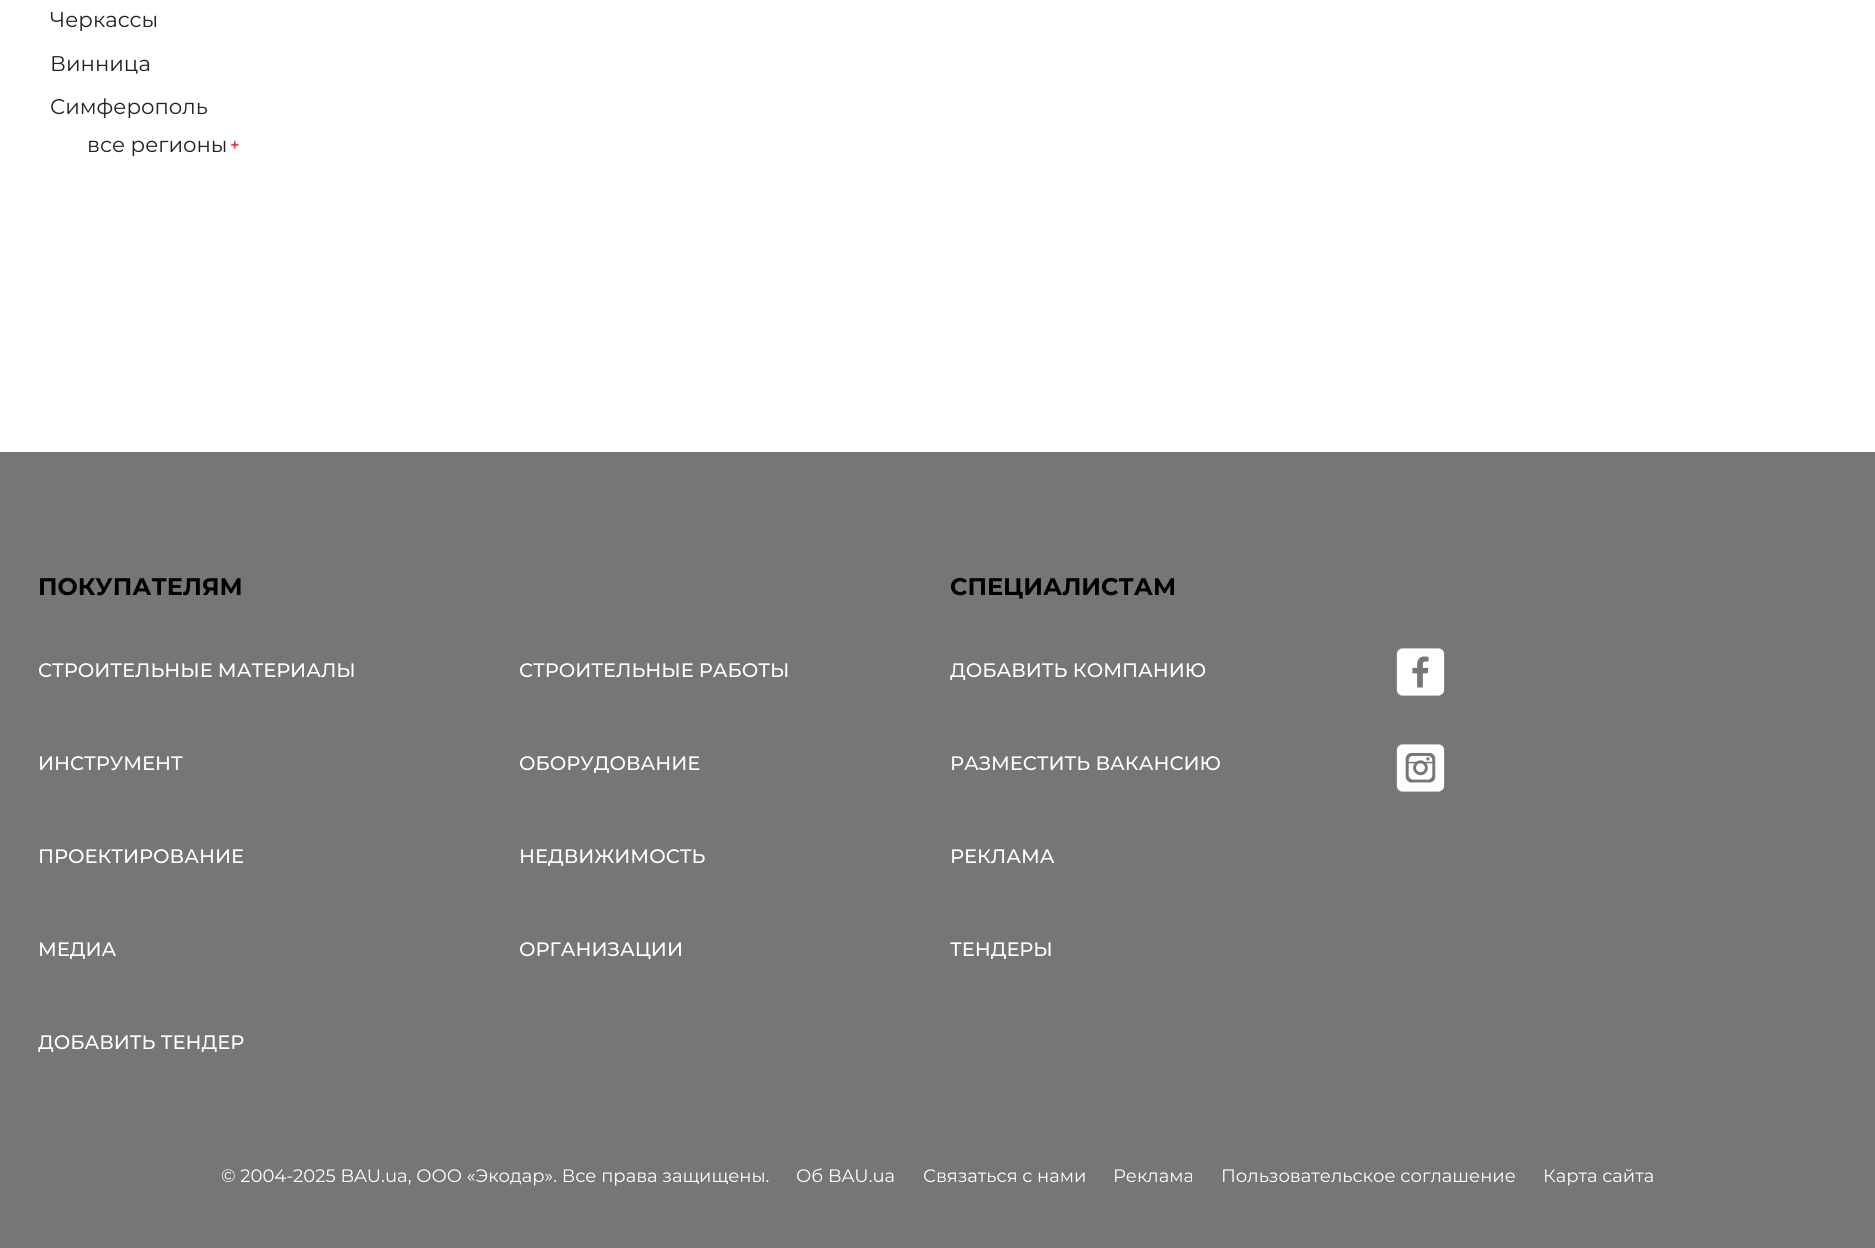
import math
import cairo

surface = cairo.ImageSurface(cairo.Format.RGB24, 1875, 1248)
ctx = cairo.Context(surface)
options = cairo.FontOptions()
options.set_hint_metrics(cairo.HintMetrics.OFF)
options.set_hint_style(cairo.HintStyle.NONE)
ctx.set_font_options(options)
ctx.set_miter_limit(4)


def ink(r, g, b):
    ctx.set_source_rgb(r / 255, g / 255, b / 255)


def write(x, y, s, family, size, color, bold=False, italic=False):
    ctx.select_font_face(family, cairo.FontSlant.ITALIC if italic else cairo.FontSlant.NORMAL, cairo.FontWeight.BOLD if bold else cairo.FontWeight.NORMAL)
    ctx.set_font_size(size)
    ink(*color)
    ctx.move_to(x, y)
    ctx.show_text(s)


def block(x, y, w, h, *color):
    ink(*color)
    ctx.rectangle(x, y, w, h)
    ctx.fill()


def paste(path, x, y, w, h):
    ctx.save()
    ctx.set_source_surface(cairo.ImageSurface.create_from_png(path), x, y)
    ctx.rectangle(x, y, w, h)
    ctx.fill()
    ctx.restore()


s1 = dict(family="Montserrat", size=21.25, color=(33, 33, 33))
s2 = dict(family="Montserrat", size=24, color=(0, 0, 0), bold=True)
s3 = dict(family="Montserrat Medium", size=19.5, color=(255, 255, 255))
s4 = dict(family="Montserrat", size=18, color=(255, 255, 255))

ink(255, 255, 255)
ctx.paint()
write(50, 27, "Черкассы", **s1)
write(50, 71, "Винница", **s1)
write(50, 114, "Симферополь", **s1)
write(87, 152, "все регионы", **s1)
paste("pic1.png", 230, 140, 9, 9)
block(0, 452, 1875, 796, 118, 118, 118)
write(38, 595, "ПОКУПАТЕЛЯМ", **s2)
write(38, 677, "СТРОИТЕЛЬНЫЕ МАТЕРИАЛЫ", **s3)
write(519, 677, "СТРОИТЕЛЬНЫЕ РАБОТЫ", **s3)
write(38, 770, "ИНСТРУМЕНТ", **s3)
write(519, 770, "ОБОРУДОВАНИЕ", **s3)
write(38, 863, "ПРОЕКТИРОВАНИЕ", **s3)
write(519, 863, "НЕДВИЖИМОСТЬ", **s3)
write(38, 956, "МЕДИА", **s3)
write(519, 956, "ОРГАНИЗАЦИИ", **s3)
write(38, 1049, "ДОБАВИТЬ ТЕНДЕР", **s3)
write(950, 595, "СПЕЦИАЛИСТАМ", **s2)
write(950, 677, "ДОБАВИТЬ КОМПАНИЮ", **s3)
write(950, 770, "РАЗМЕСТИТЬ ВАКАНСИЮ", **s3)
write(950, 863, "РЕКЛАМА", **s3)
write(950, 956, "ТЕНДЕРЫ", **s3)
paste("pic2.png", 1396, 648, 49, 48)
paste("pic3.png", 1396, 744, 49, 48)
write(221, 1182, "© 2004-2025 BAU.ua, ООО «Экодар». Все права защищены.", **s4)
write(796, 1182, "Об BAU.ua", **s4)
write(923, 1182, "Связаться с нами", **s4)
write(1113, 1182, "Реклама", **s4)
write(1221, 1182, "Пользовательское соглашение", **s4)
write(1543, 1182, "Карта сайта", **s4)
surface.write_to_png("screenshot.png")
